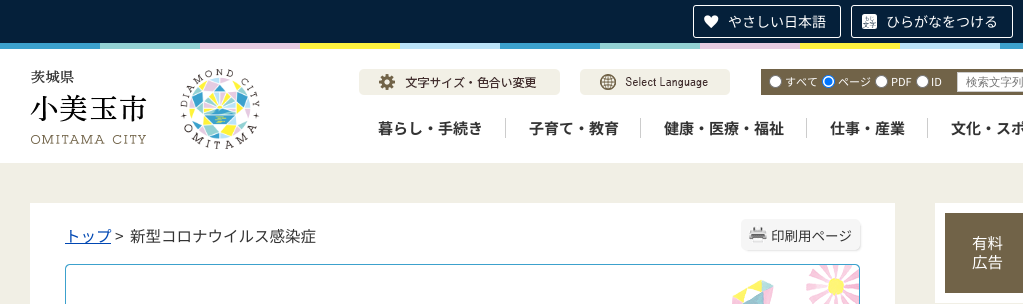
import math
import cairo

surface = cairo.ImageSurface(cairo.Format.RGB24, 1023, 304)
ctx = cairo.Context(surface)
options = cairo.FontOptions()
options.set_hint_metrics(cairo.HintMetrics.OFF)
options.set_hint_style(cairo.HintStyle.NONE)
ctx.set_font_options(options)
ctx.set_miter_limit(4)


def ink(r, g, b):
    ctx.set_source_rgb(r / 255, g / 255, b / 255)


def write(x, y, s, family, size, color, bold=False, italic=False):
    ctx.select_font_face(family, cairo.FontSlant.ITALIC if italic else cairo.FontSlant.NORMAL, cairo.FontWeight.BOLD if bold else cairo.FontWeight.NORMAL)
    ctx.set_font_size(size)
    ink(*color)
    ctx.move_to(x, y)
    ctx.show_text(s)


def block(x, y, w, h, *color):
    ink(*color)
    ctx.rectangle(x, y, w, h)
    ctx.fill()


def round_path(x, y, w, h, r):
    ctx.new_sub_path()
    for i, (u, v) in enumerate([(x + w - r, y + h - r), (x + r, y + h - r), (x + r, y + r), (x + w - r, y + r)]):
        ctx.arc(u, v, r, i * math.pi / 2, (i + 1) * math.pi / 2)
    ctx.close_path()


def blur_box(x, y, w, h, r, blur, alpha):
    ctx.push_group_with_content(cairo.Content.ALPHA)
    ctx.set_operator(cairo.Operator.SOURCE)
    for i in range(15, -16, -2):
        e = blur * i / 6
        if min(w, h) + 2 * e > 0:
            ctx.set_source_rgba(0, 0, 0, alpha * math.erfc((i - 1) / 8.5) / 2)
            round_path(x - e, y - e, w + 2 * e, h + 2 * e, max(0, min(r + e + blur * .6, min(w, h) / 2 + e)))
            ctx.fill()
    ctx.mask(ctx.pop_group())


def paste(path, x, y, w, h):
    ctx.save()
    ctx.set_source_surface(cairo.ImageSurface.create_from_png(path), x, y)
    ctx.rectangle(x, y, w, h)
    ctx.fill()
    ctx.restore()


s1 = dict(family="Noto Sans JP", size=14, color=(255, 255, 255))
s2 = dict(family="Noto Sans JP", size=11, color=(255, 255, 255))
s3 = dict(family="WenQuanYi Zen Hei Medium", size=11.5, color=(117, 117, 117))
s4 = dict(family="Noto Sans JP", size=15, color=(51, 51, 51), bold=True)
s5 = dict(family="Noto Sans JP", size=15.5, color=(0, 71, 178))
s6 = dict(family="Noto Sans JP", size=15.5, color=(51, 51, 51))
s7 = dict(family="Noto Sans JP", size=13.5, color=(51, 51, 51))
s8 = dict(family="Noto Sans JP", size=15.5, color=(255, 255, 255))

ink(5, 32, 58)
ctx.paint()
paste("pic1.png", 704, 15, 15, 13)
round_path(693.5, 5.5, 147, 32, 2.5)
ink(255, 255, 255)
ctx.set_line_width(1)
ctx.stroke()
write(728, 27, "やさしい日本語", **s1)
paste("pic2.png", 862, 14, 15, 15)
round_path(851.5, 5.5, 161, 32, 2.5)
ctx.stroke()
write(886, 27, "ひらがなをつける", **s1)
block(0, 163, 1023, 141, 241, 239, 229)
block(0, 49, 1023, 114, 255, 255, 255)
block(0, 43, 100, 6, 60, 161, 205)
block(100, 43, 100, 6, 147, 209, 211)
block(200, 43, 100, 6, 230, 203, 225)
block(300, 43, 100, 6, 255, 243, 63)
block(400, 43, 100, 6, 187, 227, 249)
block(500, 43, 100, 6, 60, 161, 205)
block(600, 43, 100, 6, 147, 209, 211)
block(700, 43, 100, 6, 230, 203, 225)
block(800, 43, 100, 6, 255, 243, 63)
block(900, 43, 100, 6, 187, 227, 249)
block(1000, 43, 23, 6, 60, 161, 205)
paste("pic3.png", 30, 70, 117, 74)
paste("pic4.png", 180, 69, 80, 80)
paste("pic5.png", 359, 69, 201, 26)
paste("pic6.png", 580, 69, 150, 26)
block(761, 69, 262, 26, 113, 99, 72)
ink(255, 255, 255)
ctx.arc(775.5, 81.5, 6, 0, 2 * math.pi)
ctx.fill_preserve()
ink(118, 118, 118)
ctx.stroke()
write(785, 86, "すべて", **s2)
ctx.new_path()
ctx.arc(828.5, 81.5, 6, 0, 2 * math.pi)
ctx.fill_preserve()
ink(0, 117, 255)
ctx.stroke()
ctx.arc(828.5, 81.5, 4, 0, 2 * math.pi)
ctx.fill()
write(838, 86, "ページ", **s2)
ctx.new_path()
ctx.arc(881.5, 81.5, 6, 0, 2 * math.pi)
ctx.fill_preserve()
ink(118, 118, 118)
ctx.stroke()
write(891, 86, "PDF", **s2)
ctx.new_path()
ctx.arc(922.5, 81.5, 6, 0, 2 * math.pi)
ctx.fill_preserve()
ink(118, 118, 118)
ctx.stroke()
write(931, 86, "ID", **s2)
ctx.rectangle(957.5, 72.5, 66, 19)
ctx.fill_preserve()
ink(204, 204, 204)
ctx.stroke()
write(966, 86, "検索文字列", **s3)
write(378, 134, "暮らし・手続き", **s4)
block(505, 118, 1, 20, 204, 204, 204)
write(529, 134, "子育て・教育", **s4)
block(640, 118, 1, 20, 204, 204, 204)
write(664, 134, "健康・医療・福祉", **s4)
block(806, 118, 1, 20, 204, 204, 204)
write(830, 134, "仕事・産業", **s4)
block(927, 118, 1, 20, 204, 204, 204)
write(951, 134, "文化・スポ", **s4)
block(30, 203, 865, 101, 255, 255, 255)
block(65, 243, 46, 1, 0, 71, 178)
write(65, 242, "トップ", **s5)
write(115, 242, ">", **s6)
write(130, 242, "新型コロナウイルス感染症", **s6)
ink(0, 0, 0)
blur_box(747, 225, 111, 23, 1, 2, 0.75)
ink(246, 246, 246)
round_path(741, 219, 119, 31, 5)
ctx.fill()
paste("pic7.png", 749, 225, 18, 18)
write(771, 241, "印刷用ページ", **s7)
ink(60, 161, 205)
ctx.set_fill_rule(cairo.FillRule.EVEN_ODD)
ctx.new_path()
ctx.move_to(70, 264)
ctx.line_to(855, 264)
ctx.curve_to(858, 264, 860, 266, 860, 269)
ctx.line_to(860, 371)
ctx.line_to(65, 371)
ctx.line_to(65, 269)
ctx.curve_to(65, 266, 67, 264, 70, 264)
ctx.close_path()
ctx.move_to(70, 265)
ctx.line_to(855, 265)
ctx.curve_to(857, 265, 859, 267, 859, 269)
ctx.line_to(859, 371)
ctx.line_to(66, 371)
ctx.line_to(66, 269)
ctx.curve_to(66, 267, 68, 265, 70, 265)
ctx.close_path()
ctx.fill()
paste("pic8.png", 732, 265, 127, 39)
block(935, 203, 88, 100, 255, 255, 255)
block(945, 213, 78, 80, 113, 99, 72)
write(972, 249, "有料", **s8)
write(972, 268, "広告", **s8)
surface.write_to_png("screenshot.png")
